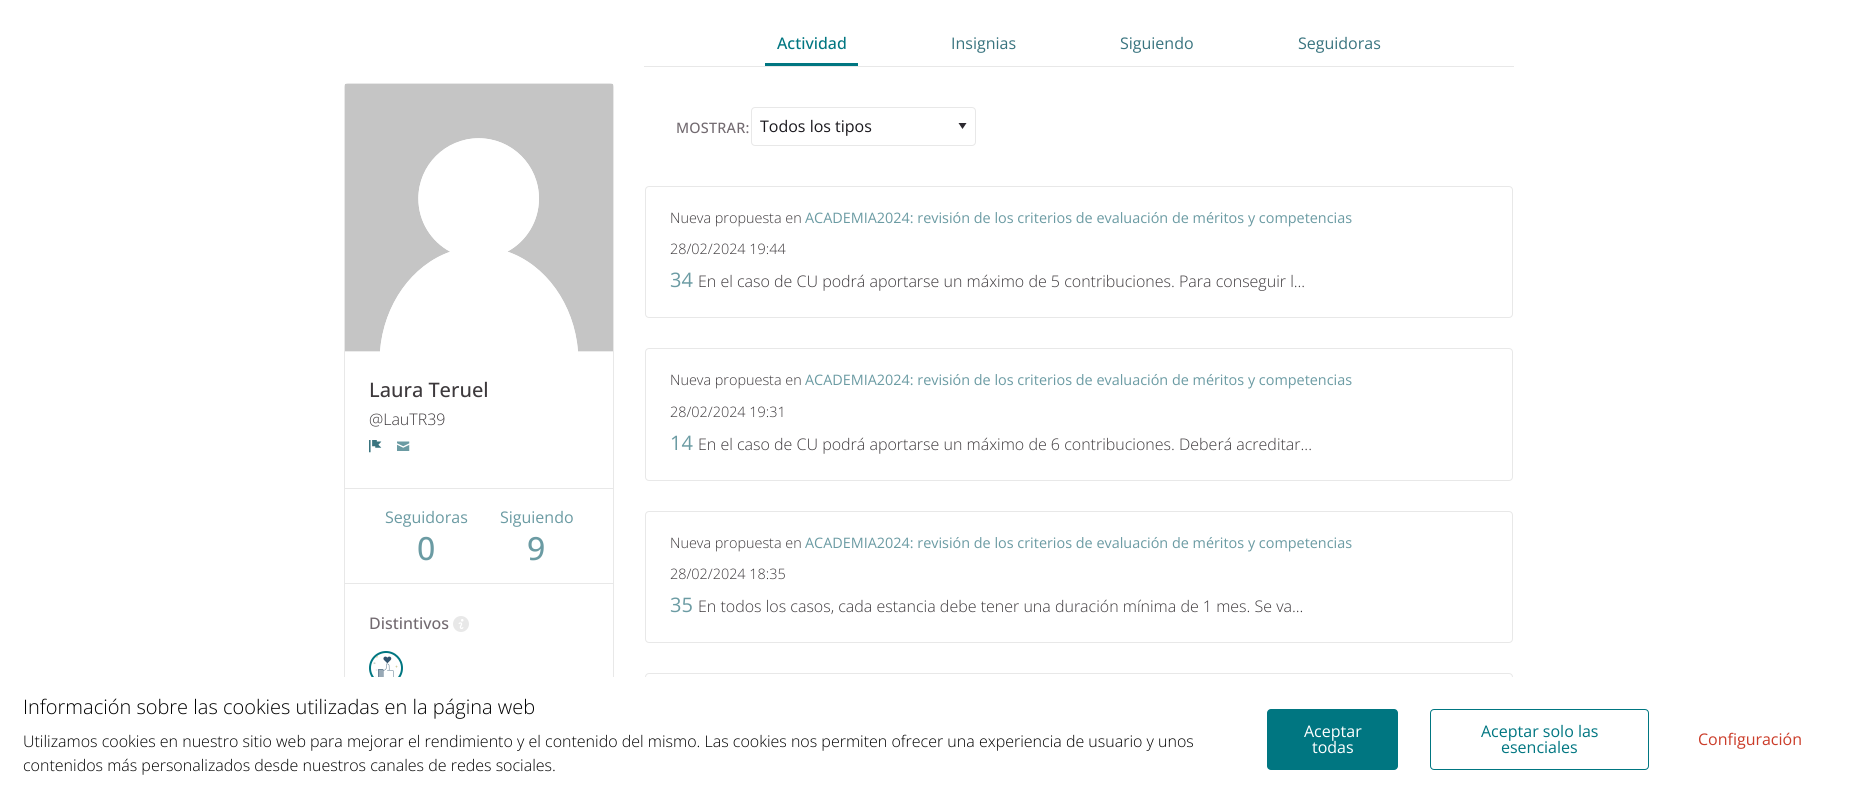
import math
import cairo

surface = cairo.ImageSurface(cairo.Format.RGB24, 1858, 802)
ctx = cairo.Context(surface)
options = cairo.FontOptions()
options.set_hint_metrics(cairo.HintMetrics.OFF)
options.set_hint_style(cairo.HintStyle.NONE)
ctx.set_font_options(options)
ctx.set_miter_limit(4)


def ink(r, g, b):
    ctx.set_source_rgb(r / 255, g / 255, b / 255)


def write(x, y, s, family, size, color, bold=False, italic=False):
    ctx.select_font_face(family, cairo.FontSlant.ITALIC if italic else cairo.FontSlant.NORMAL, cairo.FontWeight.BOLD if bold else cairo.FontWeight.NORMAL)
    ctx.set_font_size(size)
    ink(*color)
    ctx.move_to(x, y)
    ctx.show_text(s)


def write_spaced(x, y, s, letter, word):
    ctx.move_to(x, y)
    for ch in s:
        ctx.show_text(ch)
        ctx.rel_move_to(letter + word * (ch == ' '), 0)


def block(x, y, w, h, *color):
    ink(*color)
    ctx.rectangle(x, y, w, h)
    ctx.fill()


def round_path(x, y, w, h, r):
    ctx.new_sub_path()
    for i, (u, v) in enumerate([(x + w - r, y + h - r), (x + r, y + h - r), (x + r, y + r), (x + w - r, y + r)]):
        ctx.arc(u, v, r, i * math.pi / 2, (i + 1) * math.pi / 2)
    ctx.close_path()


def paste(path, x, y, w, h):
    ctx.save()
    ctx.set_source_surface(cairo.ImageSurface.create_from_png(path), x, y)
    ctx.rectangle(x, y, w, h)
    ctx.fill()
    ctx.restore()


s1 = dict(family="Open Sans Medium", size=16, color=(0, 118, 129))
s2 = dict(family="Open Sans", size=16, color=(57, 116, 127))
s3 = dict(family="Open Sans Medium", size=20, color=(61, 57, 60))
s4 = dict(family="Open Sans Light", size=16, color=(61, 57, 60))
s5 = dict(family="Open Sans", size=16, color=(107, 155, 163))
s6 = dict(family="Open Sans Medium", size=32, color=(107, 155, 163))
s7 = dict(family="Open Sans Medium", size=16, color=(114, 106, 112))
s8 = dict(family="Open Sans", size=16, color=(26, 24, 29))
s9 = dict(family="Open Sans Light", size=14.4, color=(61, 57, 60))
s10 = dict(family="Open Sans", size=14.4, color=(107, 155, 163))
s11 = dict(family="Open Sans", size=20, color=(107, 155, 163))
s12 = dict(family="Open Sans Light", size=20, color=(0, 0, 0))
s13 = dict(family="Open Sans Light", size=16, color=(0, 0, 0))
s14 = dict(family="Open Sans", size=16, color=(255, 255, 255))
s15 = dict(family="Open Sans", size=16, color=(0, 118, 129))
s16 = dict(family="Open Sans", size=16, color=(203, 60, 41))

ink(255, 255, 255)
ctx.paint()
block(644, 66, 870, 1, 232, 232, 232)
block(765, 63, 93, 3, 0, 118, 129)
write(777, 49, "Actividad", **s1)
write(951, 49, "Insignias", **s2)
write(1120, 49, "Siguiendo", **s2)
write(1298, 49, "Seguidoras", **s2)
round_path(344.5, 83.5, 269, 634, 3.5)
ink(232, 232, 232)
ctx.set_line_width(1)
ctx.stroke()
paste("pic1.png", 345, 84, 268, 268)
write(369, 397, "Laura Teruel", **s3)
write(369, 425, "@LauTR39", **s4)
paste("pic2.png", 369, 440, 13, 13)
paste("pic3.png", 397, 441, 13, 10)
block(345, 488, 268, 1, 232, 232, 232)
write(385, 523, "Seguidoras", **s5)
write(417, 560, "0", **s6)
write(500, 523, "Siguiendo", **s5)
write(527, 560, "9", **s6)
block(345, 583, 268, 1, 232, 232, 232)
write(369, 629, "Distintivos", **s7)
ink(232, 232, 232)
ctx.new_path()
ctx.arc(461, 624, 8, 0, 2 * math.pi)
ctx.fill()
paste("pic4.png", 458, 619, 6, 10)
ctx.arc(386, 668, 16, 0, 2 * math.pi)
ink(0, 118, 129)
ctx.set_line_width(2)
ctx.stroke()
paste("pic5.png", 373, 656, 25, 21)
ctx.set_font_size(14.4)
ink(114, 106, 112)
write_spaced(676, 133, "MOSTRAR:", 0.25, 0)
ink(44, 41, 48)
ctx.new_path()
ctx.move_to(958.5, 123)
ctx.line_to(966.5, 123)
ctx.line_to(962.5, 129)
ctx.close_path()
ctx.fill()
round_path(751.5, 107.5, 224, 38, 3.5)
ink(232, 232, 232)
ctx.set_line_width(1)
ctx.stroke()
write(760, 132, "Todos los tipos", **s8)
round_path(645.5, 186.5, 867, 131, 3.5)
ink(232, 232, 232)
ctx.stroke()
write(670, 223, "Nueva propuesta en", **s9)
write(805, 223, "ACADEMIA2024: revisión de los criterios de evaluación de méritos y competencias", **s10)
write(670, 254, "28/02/2024 19:44", **s9)
write(670, 287, "34", **s11)
write(698, 287, "En el caso de CU podrá aportarse un máximo de 5 contribuciones. Para conseguir l...", **s4)
round_path(645.5, 348.5, 867, 132, 3.5)
ink(232, 232, 232)
ctx.stroke()
write(670, 385, "Nueva propuesta en", **s9)
write(805, 385, "ACADEMIA2024: revisión de los criterios de evaluación de méritos y competencias", **s10)
write(670, 417, "28/02/2024 19:31", **s9)
write(670, 450, "14", **s11)
write(698, 450, "En el caso de CU podrá aportarse un máximo de 6 contribuciones. Deberá acreditar...", **s4)
round_path(645.5, 511.5, 867, 131, 3.5)
ink(232, 232, 232)
ctx.stroke()
write(670, 548, "Nueva propuesta en", **s9)
write(805, 548, "ACADEMIA2024: revisión de los criterios de evaluación de méritos y competencias", **s10)
write(670, 579, "28/02/2024 18:35", **s9)
write(670, 612, "35", **s11)
write(698, 612, "En todos los casos, cada estancia debe tener una duración mínima de 1 mes. Se va...", **s4)
round_path(645.5, 673.5, 867, 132, 3.5)
ink(232, 232, 232)
ctx.stroke()
block(344, 677, 1169, 125, 255, 255, 255)
write(23, 714, "Información sobre las cookies utilizadas en la página web", **s12)
write(23, 747, "Utilizamos cookies en nuestro sitio web para mejorar el rendimiento y el contenido del mismo. Las cookies nos permiten ofrecer una experiencia de usuario y unos", **s13)
write(23, 771, "contenidos más personalizados desde nuestros canales de redes sociales.", **s13)
ink(0, 118, 129)
round_path(1267, 709, 131, 61, 4)
ctx.fill()
write(1304, 737, "Aceptar", **s14)
write(1312, 753, "todas", **s14)
round_path(1430.5, 709.5, 218, 60, 3.5)
ink(0, 118, 129)
ctx.stroke()
write(1481, 737, "Aceptar solo las", **s15)
write(1501, 753, "esenciales", **s15)
write(1698, 745, "Configuración", **s16)
surface.write_to_png("screenshot.png")
